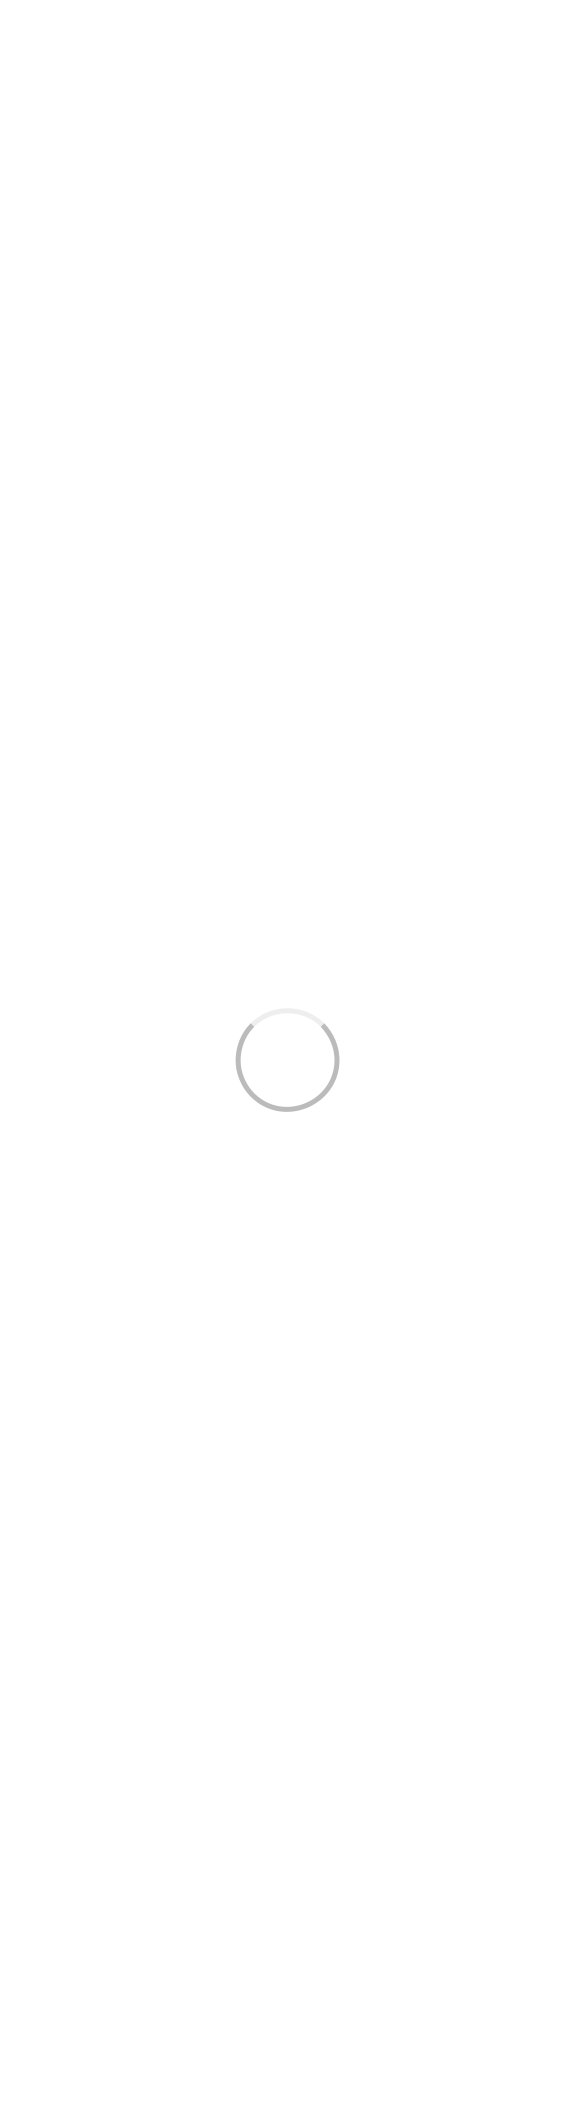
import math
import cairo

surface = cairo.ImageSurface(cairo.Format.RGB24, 573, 2118)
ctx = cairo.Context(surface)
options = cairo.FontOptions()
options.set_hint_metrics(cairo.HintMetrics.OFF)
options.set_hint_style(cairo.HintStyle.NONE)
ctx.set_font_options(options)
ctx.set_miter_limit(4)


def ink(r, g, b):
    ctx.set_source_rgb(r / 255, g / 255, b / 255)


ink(255, 255, 255)
ctx.paint()
ctx.new_path()
ctx.move_to(252.5, 1025)
ctx.curve_to(271.5, 1006, 303.5, 1006, 322.5, 1025)
ink(238, 238, 238)
ctx.set_line_width(5)
ctx.stroke()
ctx.new_path()
ctx.move_to(322.5, 1025)
ctx.curve_to(331.5, 1034.5, 337, 1047, 337, 1060)
ctx.curve_to(337, 1103.5, 283.5, 1126, 252.5, 1095)
ctx.curve_to(245.5, 1088, 241, 1079, 239, 1069.5)
ctx.curve_to(236, 1053.5, 241, 1036.5, 252.5, 1025)
ink(187, 187, 187)
ctx.stroke()
surface.write_to_png("screenshot.png")
